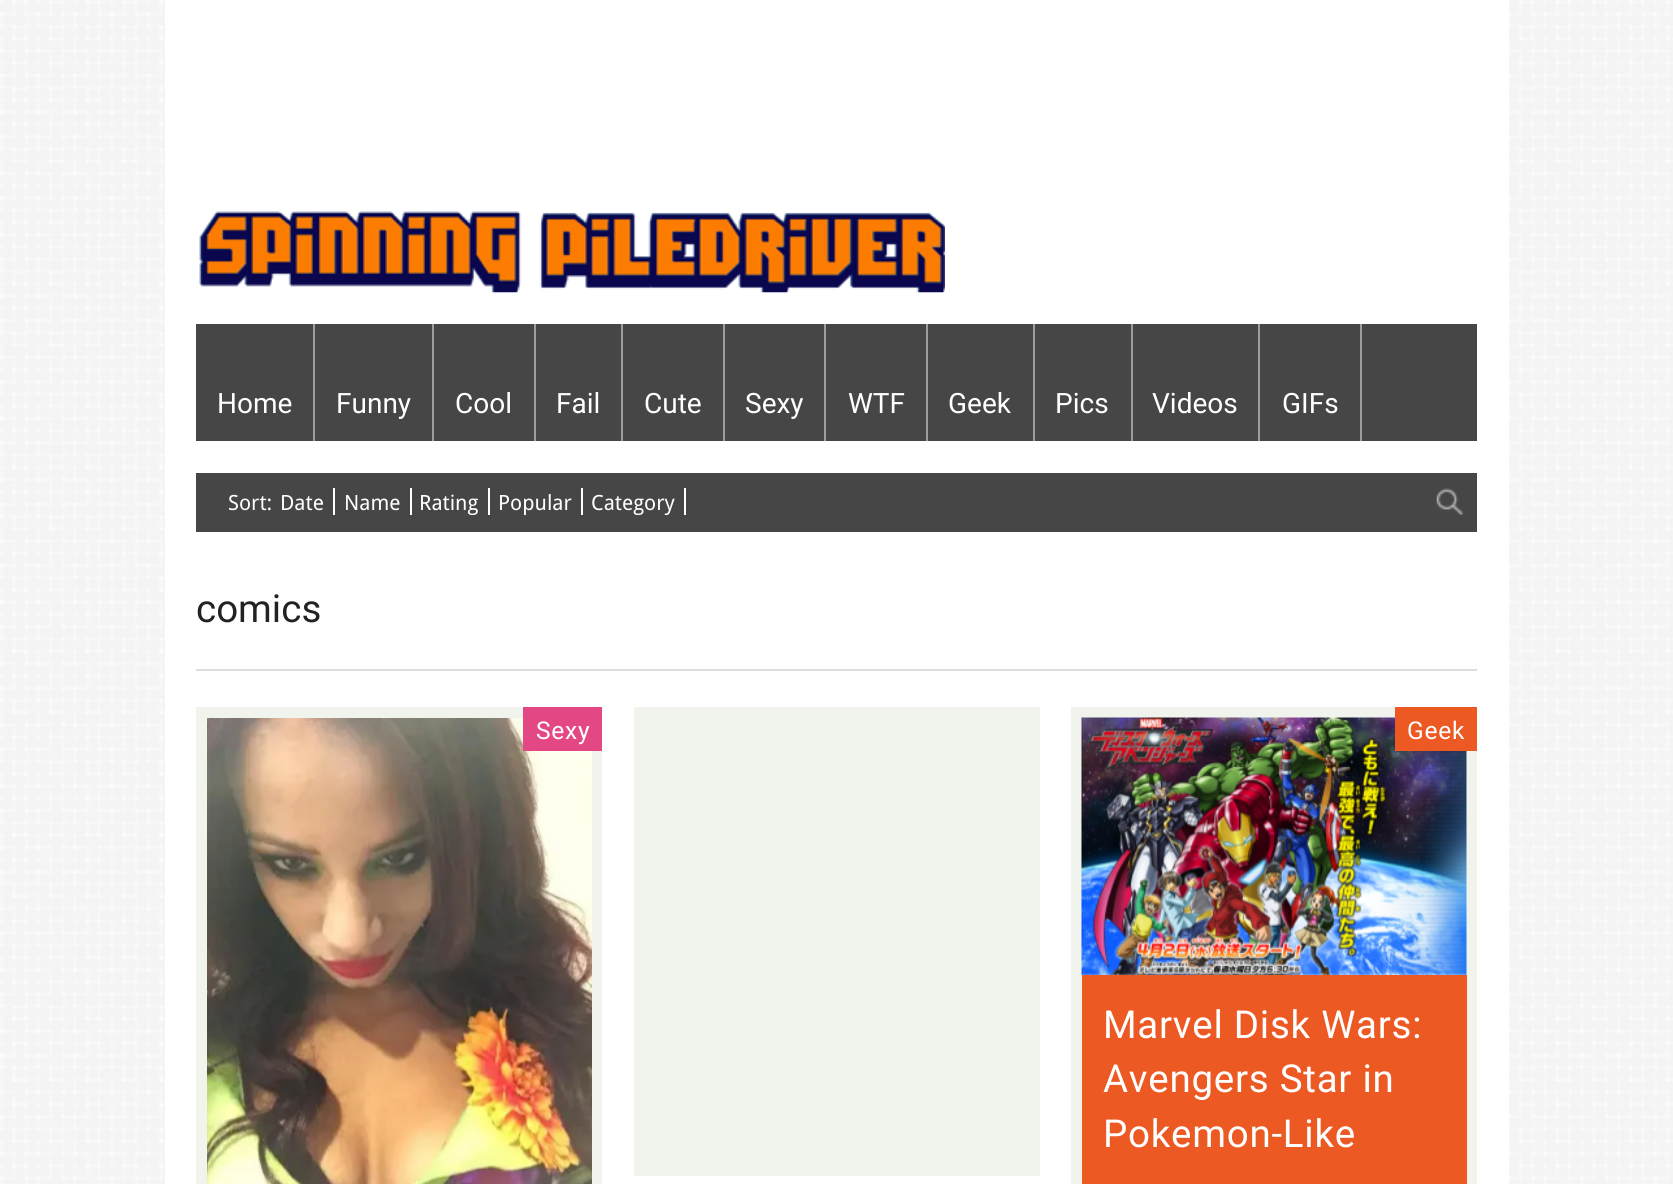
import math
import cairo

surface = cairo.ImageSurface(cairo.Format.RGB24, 1673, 1184)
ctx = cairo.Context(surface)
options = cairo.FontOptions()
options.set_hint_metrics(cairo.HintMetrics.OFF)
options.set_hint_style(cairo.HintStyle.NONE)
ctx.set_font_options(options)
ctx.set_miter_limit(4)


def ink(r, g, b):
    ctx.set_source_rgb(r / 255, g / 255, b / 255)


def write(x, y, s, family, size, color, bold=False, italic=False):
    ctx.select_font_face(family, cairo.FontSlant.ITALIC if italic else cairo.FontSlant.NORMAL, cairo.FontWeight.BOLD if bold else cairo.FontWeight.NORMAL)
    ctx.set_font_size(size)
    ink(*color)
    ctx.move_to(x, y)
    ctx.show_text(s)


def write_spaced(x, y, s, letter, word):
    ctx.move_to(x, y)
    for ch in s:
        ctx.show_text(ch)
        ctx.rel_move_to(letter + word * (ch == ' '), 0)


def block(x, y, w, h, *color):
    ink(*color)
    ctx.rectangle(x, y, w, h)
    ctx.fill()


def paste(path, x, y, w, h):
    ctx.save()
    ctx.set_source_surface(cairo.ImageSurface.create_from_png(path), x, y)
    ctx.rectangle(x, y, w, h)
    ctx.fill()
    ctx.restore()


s1 = dict(family="Roboto", size=28, color=(255, 255, 255))
s2 = dict(family="Droid Sans", size=21, color=(255, 255, 255))
s3 = dict(family="Roboto", size=38.5, color=(34, 34, 34))

ink(255, 255, 255)
ctx.paint()
paste("pic1.png", 0, 0, 1673, 1184)
block(165, 0, 1344, 1184, 255, 255, 255)
paste("pic2.png", 199, 211, 746, 82)
block(196, 324, 1281, 117, 70, 70, 70)
block(313, 324, 2, 117, 157, 157, 157)
write(217, 413, "Home", **s1)
block(432, 324, 2, 117, 157, 157, 157)
write(336, 413, "Funny", **s1)
block(534, 324, 2, 117, 157, 157, 157)
write(455, 413, "Cool", **s1)
block(621, 324, 2, 117, 157, 157, 157)
write(556, 413, "Fail", **s1)
block(723, 324, 2, 117, 157, 157, 157)
write(644, 413, "Cute", **s1)
block(824, 324, 2, 117, 157, 157, 157)
write(745, 413, "Sexy", **s1)
block(926, 324, 2, 117, 157, 157, 157)
write(848, 413, "WTF", **s1)
block(1033, 324, 2, 117, 157, 157, 157)
write(948, 413, "Geek", **s1)
block(1131, 324, 2, 117, 157, 157, 157)
write(1055, 413, "Pics", **s1)
block(1258, 324, 2, 117, 157, 157, 157)
write(1152, 413, "Videos", **s1)
block(1360, 324, 2, 117, 157, 157, 157)
write(1282, 413, "GIFs", **s1)
block(196, 473, 1281, 59, 70, 70, 70)
write(228, 510, "Sort:", **s2)
block(333, 488, 2, 27, 255, 255, 255)
write(280, 510, "Date", **s2)
block(410, 488, 2, 27, 255, 255, 255)
write(344, 510, "Name", **s2)
block(488, 488, 2, 27, 255, 255, 255)
write(419, 510, "Rating", **s2)
block(581, 488, 2, 27, 255, 255, 255)
write(498, 510, "Popular", **s2)
block(684, 488, 2, 27, 255, 255, 255)
write(591, 510, "Category", **s2)
paste("pic3.png", 1436, 488, 27, 27)
write(196, 622, "comics", **s3)
block(196, 669, 1281, 2, 221, 221, 221)
block(196, 707, 406, 477, 241, 244, 237)
paste("pic4.png", 207, 718, 385, 466)
block(523, 707, 79, 44, 228, 72, 132)
ctx.set_font_size(24.5)
ink(255, 255, 255)
write_spaced(536, 739, "Sexy", 0.75, 0)
block(634, 707, 406, 469, 241, 244, 237)
block(1071, 707, 406, 477, 241, 244, 237)
paste("pic5.png", 1081, 717, 386, 258)
block(1395, 707, 82, 44, 236, 89, 35)
ink(255, 255, 255)
write_spaced(1407, 739, "Geek", 0.75, 0)
block(1082, 975, 385, 209, 236, 89, 35)
ctx.set_font_size(38.5)
ink(255, 255, 255)
write_spaced(1103, 1038, "Marvel Disk Wars:", 0.75, 0)
write_spaced(1103, 1092, "Avengers Star in", 0.75, 0)
write_spaced(1103, 1147, "Pokemon-Like", 0.75, 0)
surface.write_to_png("screenshot.png")
